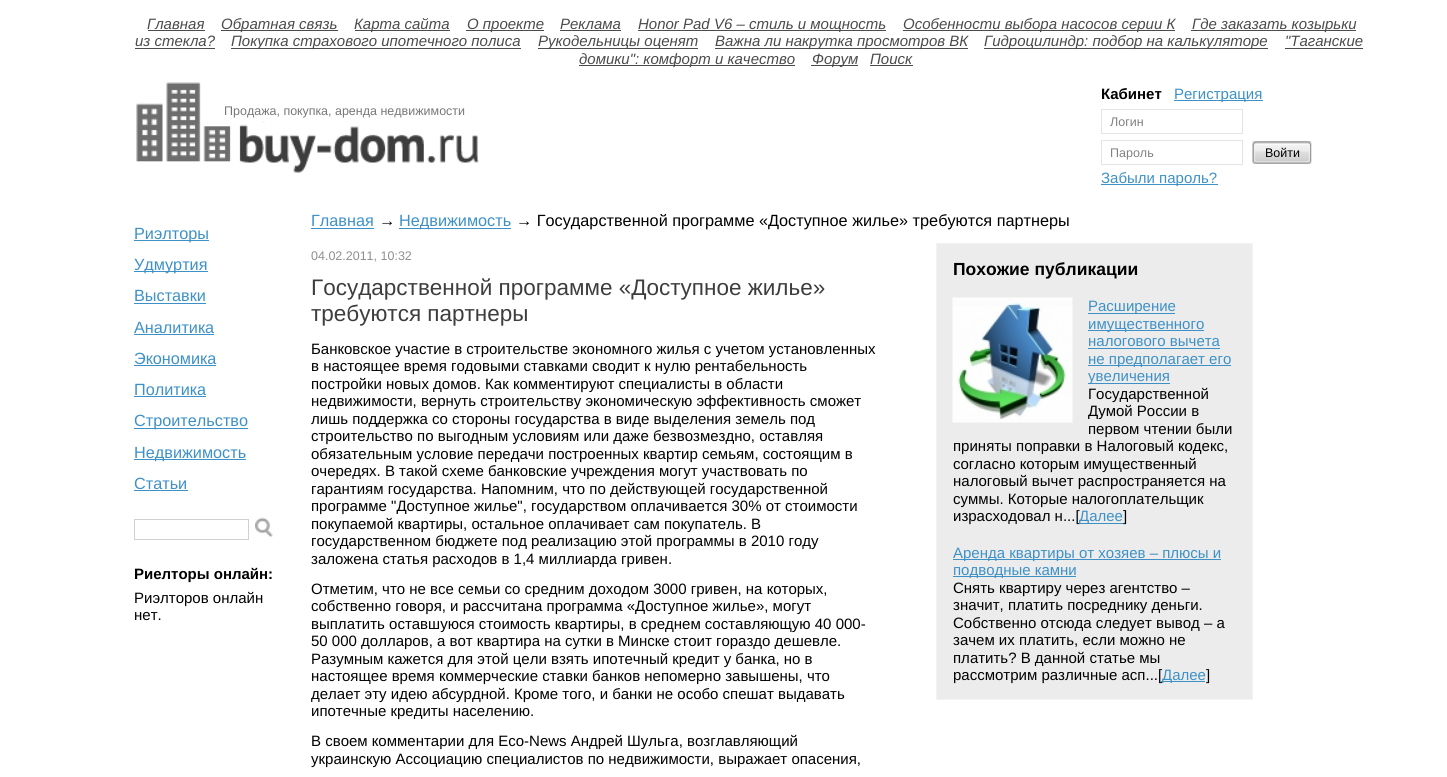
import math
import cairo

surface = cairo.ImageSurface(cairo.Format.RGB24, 1447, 777)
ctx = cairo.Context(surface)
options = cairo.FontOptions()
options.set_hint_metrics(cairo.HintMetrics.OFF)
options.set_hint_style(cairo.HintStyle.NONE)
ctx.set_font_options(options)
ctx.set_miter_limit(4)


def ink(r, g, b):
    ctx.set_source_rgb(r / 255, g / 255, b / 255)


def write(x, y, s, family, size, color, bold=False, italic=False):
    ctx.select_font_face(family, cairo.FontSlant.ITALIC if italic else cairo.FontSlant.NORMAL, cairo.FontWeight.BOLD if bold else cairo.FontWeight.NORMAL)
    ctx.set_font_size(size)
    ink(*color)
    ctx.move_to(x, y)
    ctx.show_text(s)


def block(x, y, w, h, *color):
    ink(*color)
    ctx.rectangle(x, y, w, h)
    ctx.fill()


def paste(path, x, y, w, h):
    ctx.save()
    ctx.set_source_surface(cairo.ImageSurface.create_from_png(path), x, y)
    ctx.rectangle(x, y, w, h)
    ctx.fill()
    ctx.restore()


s1 = dict(family="Liberation Sans", size=15, color=(75, 75, 75), italic=True)
s2 = dict(family="Liberation Sans", size=12.5, color=(119, 119, 119))
s3 = dict(family="Liberation Sans", size=15, color=(0, 0, 0), bold=True)
s4 = dict(family="Liberation Sans", size=15, color=(61, 145, 199))
s5 = dict(family="Liberation Sans", size=12.5, color=(129, 129, 129))
s6 = dict(family="Liberation Sans", size=12.5, color=(0, 0, 0))
s7 = dict(family="Liberation Sans", size=16.25, color=(61, 145, 199))
s8 = dict(family="Liberation Sans", size=15, color=(0, 0, 0))
s9 = dict(family="Liberation Sans", size=16.25, color=(0, 0, 0))
s10 = dict(family="Liberation Sans", size=12.5, color=(143, 143, 143))
s11 = dict(family="Liberation Sans", size=22.5, color=(61, 61, 61))
s12 = dict(family="Liberation Sans", size=17.5, color=(0, 0, 0), bold=True)

ink(255, 255, 255)
ctx.paint()
write(147, 29, "Главная", **s1)
block(148, 30, 57, 1, 75, 75, 75)
block(221, 30, 117, 1, 75, 75, 75)
write(221, 29, "Обратная связь", **s1)
block(355, 30, 95, 1, 75, 75, 75)
write(354, 29, "Карта сайта", **s1)
block(466, 30, 78, 1, 75, 75, 75)
write(467, 29, "О проекте", **s1)
write(560, 29, "Реклама", **s1)
block(560, 30, 61, 1, 75, 75, 75)
block(638, 30, 248, 1, 75, 75, 75)
write(638, 29, "Honor Pad V6 – стиль и мощность", **s1)
block(903, 30, 272, 1, 75, 75, 75)
write(903, 29, "Особенности выбора насосов серии К", **s1)
block(1191, 30, 165, 1, 75, 75, 75)
write(1192, 29, "Где заказать козырьки", **s1)
write(135, 46, "из стекла?", **s1)
block(135, 48, 80, 1, 75, 75, 75)
block(231, 48, 290, 1, 75, 75, 75)
write(231, 46, "Покупка страхового ипотечного полиса", **s1)
block(538, 48, 160, 1, 75, 75, 75)
write(538, 46, "Рукодельницы оценят", **s1)
block(715, 48, 253, 1, 75, 75, 75)
write(715, 46, "Важна ли накрутка просмотров ВК", **s1)
block(984, 48, 284, 1, 75, 75, 75)
write(984, 46, "Гидроцилиндр: подбор на калькуляторе", **s1)
write(1285, 46, "\"Таганские", **s1)
block(1285, 48, 78, 1, 75, 75, 75)
block(579, 65, 216, 1, 75, 75, 75)
write(579, 64, "домики\": комфорт и качество", **s1)
block(811, 65, 47, 1, 75, 75, 75)
write(812, 64, "Форум", **s1)
write(870, 64, "Поиск", **s1)
block(870, 65, 43, 1, 75, 75, 75)
paste("pic1.png", 136, 82, 343, 91)
write(224, 115, "Продажа, покупка, аренда недвижимости", **s2)
write(1101, 99, "Кабинет", **s3)
block(1174, 100, 89, 1, 61, 145, 199)
write(1174, 99, "Регистрация", **s4)
ctx.rectangle(1101.5, 109.5, 141, 24)
ink(226, 228, 234)
ctx.set_line_width(1)
ctx.stroke()
write(1110, 126, "Логин", **s5)
ctx.rectangle(1101.5, 140.5, 141, 24)
ink(226, 228, 234)
ctx.stroke()
write(1110, 157, "Пароль", **s5)
paste("pic2.png", 1252, 141, 60, 23)
write(1265, 157, "Войти", **s6)
block(1101, 184, 117, 1, 61, 145, 199)
write(1101, 183, "Забыли пароль?", **s4)
block(134, 240, 75, 1, 61, 145, 199)
write(134, 239, "Риэлторы", **s7)
block(134, 271, 74, 1, 61, 145, 199)
write(134, 270, "Удмуртия", **s7)
write(134, 301, "Выставки", **s7)
block(134, 303, 72, 1, 61, 145, 199)
write(134, 333, "Аналитика", **s7)
block(134, 334, 80, 1, 61, 145, 199)
write(134, 364, "Экономика", **s7)
block(134, 365, 82, 1, 61, 145, 199)
write(134, 395, "Политика", **s7)
block(134, 396, 72, 1, 61, 145, 199)
block(134, 428, 114, 1, 61, 145, 199)
write(134, 426, "Строительство", **s7)
block(134, 459, 112, 1, 61, 145, 199)
write(134, 458, "Недвижимость", **s7)
write(134, 489, "Статьи", **s7)
block(134, 490, 54, 1, 61, 145, 199)
ctx.rectangle(134.5, 519.5, 114, 20)
ink(208, 208, 208)
ctx.stroke()
paste("pic3.png", 255, 517, 18, 21)
write(134, 579, "Риелторы онлайн:", **s3)
write(134, 603, "Риэлторов онлайн", **s8)
write(134, 620, "нет.", **s8)
write(311, 226, "Главная", **s7)
block(311, 228, 63, 1, 61, 145, 199)
write(379, 226, "→", **s9)
block(399, 228, 112, 1, 61, 145, 199)
write(399, 226, "Недвижимость", **s7)
write(516, 226, "→ Государственной программе «Доступное жилье» требуются партнеры", **s9)
write(311, 260, "04.02.2011, 10:32", **s10)
write(311, 295, "Государственной программе «Доступное жилье»", **s11)
write(311, 321, "требуются партнеры", **s11)
write(311, 354, "Банковское участие в строительстве экономного жилья с учетом установленных", **s8)
write(311, 371, "в настоящее время годовыми ставками сводит к нулю рентабельность", **s8)
write(311, 389, "постройки новых домов. Как комментируют специалисты в области", **s8)
write(311, 406, "недвижимости, вернуть строительству экономическую эффективность сможет", **s8)
write(311, 424, "лишь поддержка со стороны государства в виде выделения земель под", **s8)
write(311, 441, "строительство по выгодным условиям или даже безвозмездно, оставляя", **s8)
write(311, 459, "обязательным условие передачи построенных квартир семьям, состоящим в", **s8)
write(311, 476, "очередях. В такой схеме банковские учреждения могут участвовать по", **s8)
write(311, 494, "гарантиям государства. Напомним, что по действующей государственной", **s8)
write(311, 511, "программе \"Доступное жилье\", государством оплачивается 30% от стоимости", **s8)
write(311, 529, "покупаемой квартиры, остальное оплачивает сам покупатель. В", **s8)
write(311, 546, "государственном бюджете под реализацию этой программы в 2010 году", **s8)
write(311, 564, "заложена статья расходов в 1,4 миллиарда гривен.", **s8)
write(311, 594, "Отметим, что не все семьи со средним доходом 3000 гривен, на которых,", **s8)
write(311, 611, "собственно говоря, и рассчитана программа «Доступное жилье», могут", **s8)
write(311, 629, "выплатить оставшуюся стоимость квартиры, в среднем составляющую 40 000-", **s8)
write(311, 646, "50 000 долларов, а вот квартира на сутки в Минске стоит гораздо дешевле.", **s8)
write(311, 664, "Разумным кажется для этой цели взять ипотечный кредит у банка, но в", **s8)
write(311, 681, "настоящее время коммерческие ставки банков непомерно завышены, что", **s8)
write(311, 699, "делает эту идею абсурдной. Кроме того, и банки не особо спешат выдавать", **s8)
write(311, 716, "ипотечные кредиты населению.", **s8)
write(311, 746, "В своем комментарии для Eco-News Андрей Шульга, возглавляющий", **s8)
write(311, 764, "украинскую Ассоциацию специалистов по недвижимости, выражает опасения,", **s8)
ink(236, 236, 236)
ctx.rectangle(936.5, 243.5, 316, 456)
ctx.fill_preserve()
ink(243, 243, 243)
ctx.stroke()
write(953, 275, "Похожие публикации", **s12)
paste("pic4.png", 952, 297, 121, 126)
block(1088, 313, 87, 1, 61, 145, 199)
write(1088, 311, "Расширение", **s4)
block(1088, 330, 116, 1, 61, 145, 199)
write(1088, 329, "имущественного", **s4)
write(1088, 346, "налогового вычета", **s4)
block(1088, 348, 132, 1, 61, 145, 199)
block(1088, 365, 143, 1, 61, 145, 199)
write(1088, 364, "не предполагает его", **s4)
block(1088, 383, 82, 1, 61, 145, 199)
write(1088, 381, "увеличения", **s4)
write(1088, 399, "Государственной", **s8)
write(1088, 416, "Думой России в", **s8)
write(1088, 434, "первом чтении были", **s8)
write(953, 451, "приняты поправки в Налоговый кодекс,", **s8)
write(953, 469, "согласно которым имущественный", **s8)
write(953, 486, "налоговый вычет распространяется на", **s8)
write(953, 504, "суммы. Которые налогоплательщик", **s8)
write(953, 521, "израсходовал н...[", **s8)
block(1079, 523, 44, 1, 61, 145, 199)
write(1079, 521, "Далее", **s4)
write(1123, 521, "]", **s8)
block(953, 559, 268, 1, 61, 145, 199)
write(953, 558, "Аренда квартиры от хозяев – плюсы и", **s4)
block(953, 576, 123, 1, 61, 145, 199)
write(953, 575, "подводные камни", **s4)
write(953, 593, "Снять квартиру через агентство –", **s8)
write(953, 610, "значит, платить посреднику деньги.", **s8)
write(953, 628, "Собственно отсюда следует вывод – а", **s8)
write(953, 645, "зачем их платить, если можно не", **s8)
write(953, 663, "платить? В данной статье мы", **s8)
write(953, 680, "рассмотрим различные асп...[", **s8)
block(1161, 681, 44, 1, 61, 145, 199)
write(1162, 680, "Далее", **s4)
write(1206, 680, "]", **s8)
surface.write_to_png("screenshot.png")
